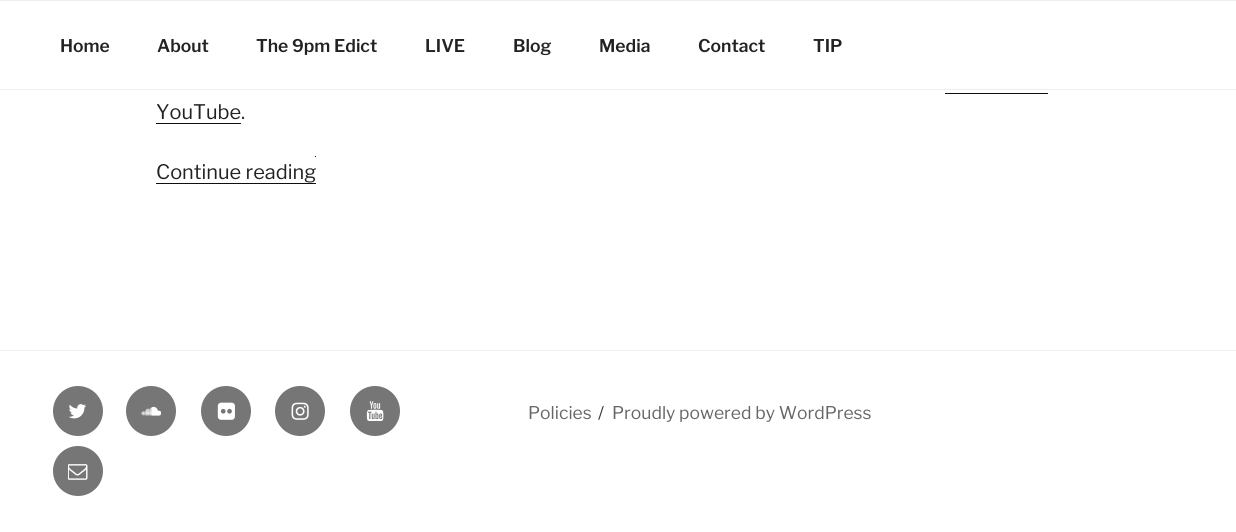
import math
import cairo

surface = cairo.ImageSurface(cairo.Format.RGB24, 1236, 532)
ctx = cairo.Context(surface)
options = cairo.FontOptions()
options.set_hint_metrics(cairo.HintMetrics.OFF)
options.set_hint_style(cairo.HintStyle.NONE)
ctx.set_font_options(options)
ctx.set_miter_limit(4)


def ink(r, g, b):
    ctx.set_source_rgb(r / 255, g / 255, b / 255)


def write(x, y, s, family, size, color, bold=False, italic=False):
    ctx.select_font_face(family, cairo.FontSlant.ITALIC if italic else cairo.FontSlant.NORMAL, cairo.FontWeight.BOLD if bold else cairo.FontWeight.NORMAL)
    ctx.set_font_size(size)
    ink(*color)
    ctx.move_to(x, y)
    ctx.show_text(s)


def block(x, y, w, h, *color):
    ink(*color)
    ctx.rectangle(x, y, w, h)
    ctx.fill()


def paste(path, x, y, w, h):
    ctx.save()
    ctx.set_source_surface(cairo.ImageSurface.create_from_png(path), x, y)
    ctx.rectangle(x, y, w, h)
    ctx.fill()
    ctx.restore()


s1 = dict(family="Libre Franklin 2 Thin", size=17.5, color=(34, 34, 34))
s2 = dict(family="Libre Franklin Thin", size=20, color=(34, 34, 34))
s3 = dict(family="Libre Franklin Thin", size=20, color=(51, 51, 51))
s4 = dict(family="Libre Franklin Thin", size=17.5, color=(102, 102, 102))
s5 = dict(family="Libre Franklin Thin", size=17.5, color=(51, 51, 51))

ink(255, 255, 255)
ctx.paint()
block(0, 0, 1236, 1, 238, 238, 238)
block(0, 89, 1236, 1, 238, 238, 238)
write(60, 52, "Home", **s1)
write(157, 52, "About", **s1)
write(256, 52, "The 9pm Edict", **s1)
write(425, 52, "LIVE", **s1)
write(513, 52, "Blog", **s1)
write(599, 52, "Media", **s1)
write(698, 52, "Contact", **s1)
write(813, 52, "TIP", **s1)
write(156, 119, "YouTube", **s2)
block(945, 93, 103, 1, 15, 15, 15)
block(156, 123, 85, 1, 15, 15, 15)
write(241, 119, ".", **s3)
write(156, 179, "Continue reading", **s2)
block(156, 183, 160, 1, 15, 15, 15)
block(315, 156, 1, 1, 15, 15, 15)
block(0, 350, 1236, 1, 238, 238, 238)
ink(118, 118, 118)
ctx.new_path()
ctx.arc(78, 411, 25, 0, 2 * math.pi)
ctx.fill()
paste("pic1.png", 68, 404, 18, 15)
ctx.arc(151, 411, 25, 0, 2 * math.pi)
ctx.fill()
paste("pic2.png", 141, 406, 20, 10)
ctx.arc(226, 411, 25, 0, 2 * math.pi)
ctx.fill()
paste("pic3.png", 217, 402, 18, 18)
ctx.arc(300, 411, 25, 0, 2 * math.pi)
ctx.fill()
paste("pic4.png", 291, 402, 18, 18)
ctx.arc(375, 411, 25, 0, 2 * math.pi)
ctx.fill()
paste("pic5.png", 366, 401, 18, 20)
ctx.arc(78, 471, 25, 0, 2 * math.pi)
ctx.fill()
paste("pic6.png", 68, 464, 20, 16)
write(528, 419, "Policies", **s4)
write(598, 419, "/", **s5)
write(612, 419, "Proudly powered by WordPress", **s4)
surface.write_to_png("screenshot.png")
